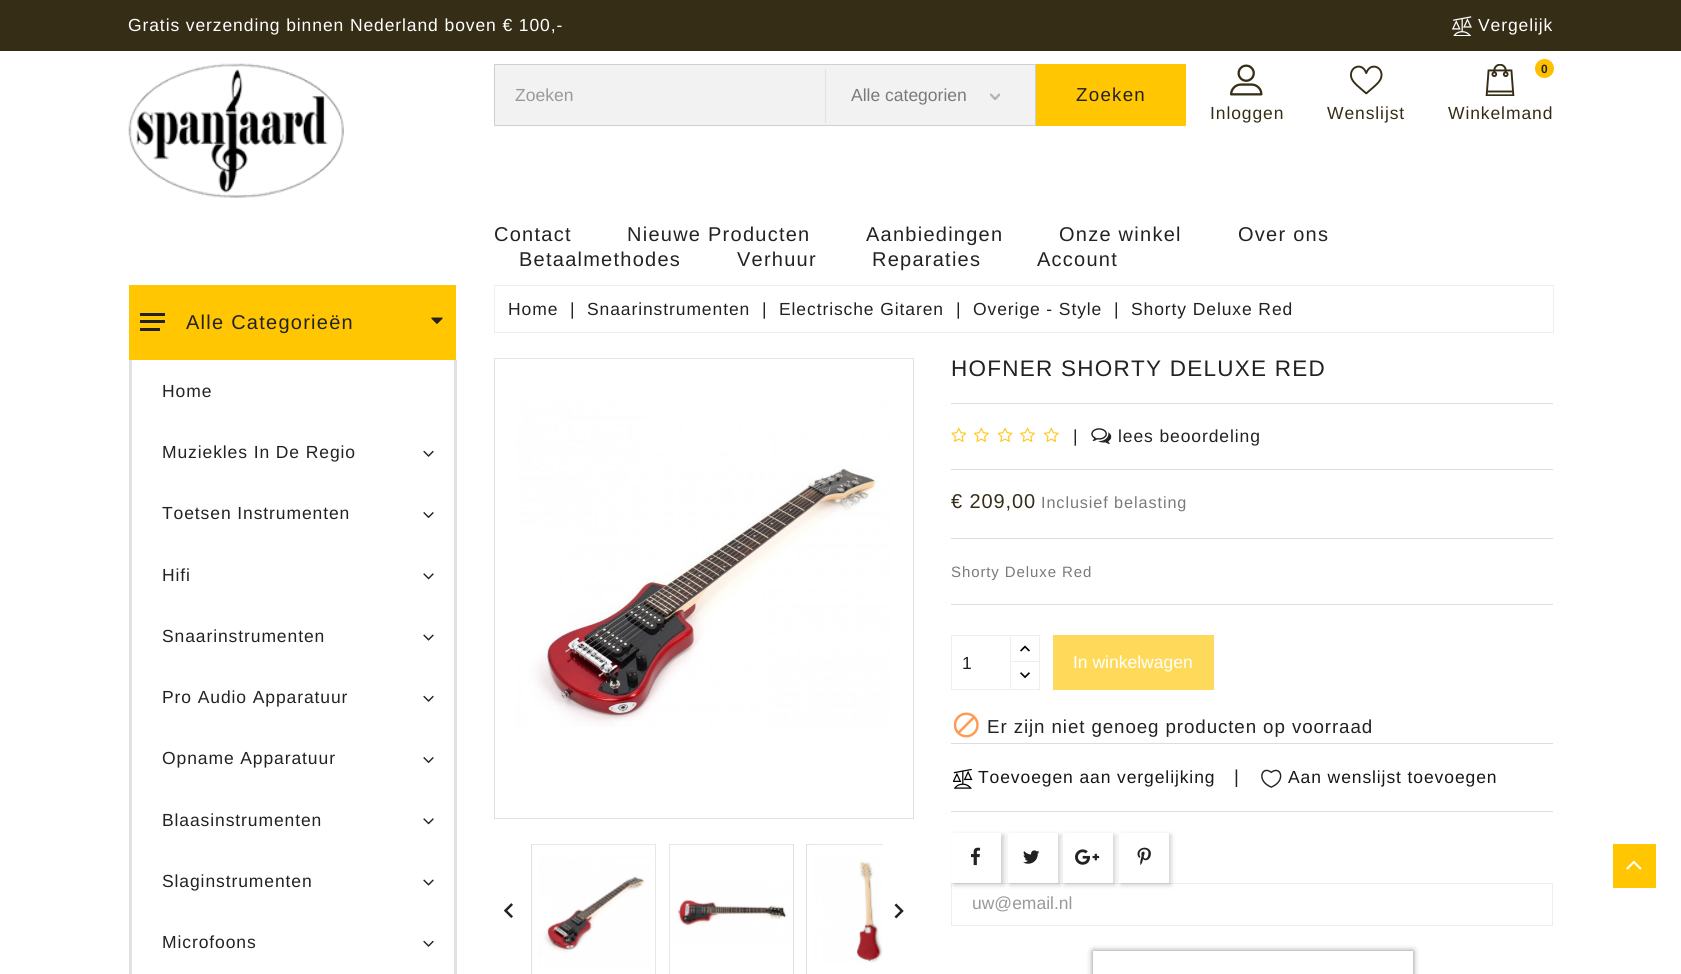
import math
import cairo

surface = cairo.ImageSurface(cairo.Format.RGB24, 1681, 974)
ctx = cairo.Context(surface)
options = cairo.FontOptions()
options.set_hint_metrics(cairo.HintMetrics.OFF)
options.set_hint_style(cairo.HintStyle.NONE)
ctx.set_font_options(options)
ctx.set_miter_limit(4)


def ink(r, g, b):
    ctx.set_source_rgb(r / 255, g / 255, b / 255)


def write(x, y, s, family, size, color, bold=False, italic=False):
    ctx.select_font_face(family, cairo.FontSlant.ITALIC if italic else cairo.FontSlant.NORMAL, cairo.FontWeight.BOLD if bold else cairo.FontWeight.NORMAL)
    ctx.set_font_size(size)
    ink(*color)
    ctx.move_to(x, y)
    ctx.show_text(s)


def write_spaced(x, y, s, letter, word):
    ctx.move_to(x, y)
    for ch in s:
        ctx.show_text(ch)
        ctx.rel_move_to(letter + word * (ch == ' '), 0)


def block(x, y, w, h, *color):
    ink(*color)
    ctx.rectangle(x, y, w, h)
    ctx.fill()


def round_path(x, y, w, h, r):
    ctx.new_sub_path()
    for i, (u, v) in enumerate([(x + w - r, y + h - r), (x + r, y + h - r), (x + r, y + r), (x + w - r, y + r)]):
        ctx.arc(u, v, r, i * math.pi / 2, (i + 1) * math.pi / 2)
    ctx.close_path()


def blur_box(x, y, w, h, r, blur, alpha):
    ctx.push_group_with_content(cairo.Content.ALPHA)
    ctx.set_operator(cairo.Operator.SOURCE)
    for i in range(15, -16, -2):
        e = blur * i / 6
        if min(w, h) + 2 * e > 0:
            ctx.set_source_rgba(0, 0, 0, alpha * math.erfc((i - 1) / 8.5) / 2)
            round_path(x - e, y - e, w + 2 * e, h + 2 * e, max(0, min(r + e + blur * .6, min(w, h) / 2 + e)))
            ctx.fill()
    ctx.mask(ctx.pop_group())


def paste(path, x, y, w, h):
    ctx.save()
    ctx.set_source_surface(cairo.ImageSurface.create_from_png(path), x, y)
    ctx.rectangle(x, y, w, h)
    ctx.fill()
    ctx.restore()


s1 = dict(family="Liberation Sans", size=17.5, color=(153, 153, 153))
s2 = dict(family="Liberation Sans", size=17.5, color=(122, 122, 122))
s3 = dict(family="Liberation Sans", size=17.5, color=(34, 34, 34))
s4 = dict(family="Liberation Sans", size=17.5, color=(255, 255, 255))

ink(255, 255, 255)
ctx.paint()
block(0, 0, 1681, 50, 54, 45, 22)
block(0, 50, 1681, 1, 49, 41, 20)
ctx.select_font_face("Liberation Sans")
ctx.set_font_size(17.5)
ink(255, 255, 255)
write_spaced(128, 31, "Gratis verzending binnen Nederland boven € 100,-", 0.9, 0)
paste("pic1.png", 1452, 16, 20, 20)
write_spaced(1478, 31, "Vergelijk", 0.9, 0)
paste("pic2.png", 128, 63, 216, 135)
ink(242, 242, 242)
ctx.rectangle(494.5, 64.5, 541, 61)
ctx.fill_preserve()
ink(207, 207, 207)
ctx.set_line_width(1)
ctx.stroke()
write(515, 101, "Zoeken", **s1)
block(1036, 64, 150, 62, 255, 198, 1)
ctx.set_font_size(18.75)
ink(34, 34, 34)
write_spaced(1076, 101, "Zoeken", 1.25, 0)
paste("pic3.png", 990, 93, 10, 7)
block(825, 69, 1, 54, 225, 225, 225)
write(851, 101, "Alle categorien", **s2)
paste("pic4.png", 1485, 64, 30, 32)
ink(255, 192, 0)
ctx.arc(1544.5, 68.5, 9.5, 0, 2 * math.pi)
ctx.fill()
ctx.select_font_face("Liberation Sans", cairo.FontSlant.NORMAL, cairo.FontWeight.BOLD)
ctx.set_font_size(12)
ink(34, 34, 34)
write_spaced(1541, 73, "0", 0.9, 0)
ctx.select_font_face("Liberation Sans")
ctx.set_font_size(17.5)
ink(54, 45, 22)
write_spaced(1448, 119, "Winkelmand", 0.9, 0)
paste("pic5.png", 1230, 64, 33, 32)
write_spaced(1210, 119, "Inloggen", 0.9, 0)
paste("pic6.png", 1350, 65, 33, 30)
write_spaced(1327, 119, "Wenslijst", 0.9, 0)
ctx.set_font_size(20)
ink(34, 34, 34)
write_spaced(494, 241, "Contact", 1.25, 0)
write_spaced(627, 241, "Nieuwe Producten", 1.25, 0)
write_spaced(866, 241, "Aanbiedingen", 1.25, 0)
write_spaced(1059, 241, "Onze winkel", 1.25, 0)
write_spaced(1238, 241, "Over ons", 1.25, 0)
write_spaced(519, 266, "Betaalmethodes", 1.25, 0)
write_spaced(737, 266, "Verhuur", 1.25, 0)
write_spaced(872, 266, "Reparaties", 1.25, 0)
write_spaced(1037, 266, "Account", 1.25, 0)
block(129, 285, 327, 75, 255, 198, 1)
block(140, 313, 25, 3, 34, 34, 34)
block(140, 320, 25, 3, 34, 34, 34)
block(140, 328, 20, 3, 34, 34, 34)
write_spaced(186, 329, "Alle Categorieën", 1.25, 0)
paste("pic7.png", 431, 317, 12, 7)
block(454, 360, 3, 614, 225, 225, 225)
block(129, 360, 3, 614, 225, 225, 225)
ctx.set_font_size(17.5)
ink(34, 34, 34)
write_spaced(162, 397, "Home", 0.9, 0)
write_spaced(162, 458, "Muziekles In De Regio", 0.9, 0)
paste("pic8.png", 423, 450, 11, 7)
write_spaced(162, 519, "Toetsen Instrumenten", 0.9, 0)
paste("pic9.png", 423, 512, 11, 6)
write_spaced(162, 581, "Hifi", 0.9, 0)
paste("pic10.png", 423, 573, 11, 7)
write_spaced(162, 642, "Snaarinstrumenten", 0.9, 0)
paste("pic11.png", 423, 634, 11, 7)
write_spaced(162, 703, "Pro Audio Apparatuur", 0.9, 0)
paste("pic8.png", 423, 695, 11, 7)
write_spaced(162, 764, "Opname Apparatuur", 0.9, 0)
paste("pic9.png", 423, 757, 11, 6)
write_spaced(162, 826, "Blaasinstrumenten", 0.9, 0)
paste("pic10.png", 423, 818, 11, 7)
write_spaced(162, 887, "Slaginstrumenten", 0.9, 0)
paste("pic11.png", 423, 879, 11, 7)
write_spaced(162, 948, "Microfoons", 0.9, 0)
paste("pic8.png", 423, 940, 11, 7)
ctx.rectangle(494.5, 285.5, 1059, 47)
ink(238, 238, 238)
ctx.stroke()
ink(34, 34, 34)
write_spaced(508, 315, "Home", 0.9, 0)
write_spaced(570, 315, "|", 0.9, 0)
write_spaced(587, 315, "Snaarinstrumenten", 0.9, 0)
write_spaced(762, 315, "|", 0.9, 0)
write_spaced(779, 315, "Electrische Gitaren", 0.9, 0)
write_spaced(956, 315, "|", 0.9, 0)
write_spaced(973, 315, "Overige - Style", 0.9, 0)
write_spaced(1114, 315, "|", 0.9, 0)
write_spaced(1131, 315, "Shorty Deluxe Red", 0.9, 0)
ctx.rectangle(494.5, 358.5, 419, 460)
ink(225, 225, 225)
ctx.stroke()
paste("pic12.png", 495, 358, 417, 369)
ctx.rectangle(531.5, 844.5, 124, 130)
ctx.stroke()
paste("pic13.png", 533, 844, 123, 130)
ctx.rectangle(669.5, 844.5, 124, 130)
ctx.stroke()
paste("pic14.png", 669, 844, 123, 130)
ctx.save()
ctx.rectangle(525, 844, 358, 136)
ctx.clip()
ctx.rectangle(806.5, 844.5, 124, 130)
ctx.stroke()
ctx.restore()
paste("pic15.png", 808, 844, 75, 119)
paste("pic16.png", 503, 903, 10, 15)
paste("pic17.png", 894, 903, 10, 16)
ctx.set_font_size(22.5)
ink(34, 34, 34)
write_spaced(951, 376, "HOFNER SHORTY DELUXE RED", 1.25, 0)
block(951, 403, 602, 1, 221, 221, 221)
paste("pic18.png", 951, 427, 16, 15)
paste("pic19.png", 974, 427, 15, 15)
paste("pic20.png", 998, 427, 15, 15)
paste("pic21.png", 1020, 427, 15, 15)
paste("pic19.png", 1044, 427, 15, 15)
ctx.set_font_size(17.5)
ink(34, 34, 34)
write_spaced(1073, 442, "|", 0.9, 0)
paste("pic22.png", 1091, 428, 21, 16)
write_spaced(1118, 442, "lees beoordeling", 0.9, 0)
block(951, 469, 602, 1, 221, 221, 221)
block(951, 538, 602, 1, 221, 221, 221)
ctx.set_font_size(20)
ink(54, 45, 22)
write_spaced(951, 508, "€ 209,00", 0.9, 0)
ctx.set_font_size(16.25)
ink(122, 122, 122)
write_spaced(1041, 508, "Inclusief belasting", 0.9, 0)
block(951, 604, 602, 1, 221, 221, 221)
ctx.set_font_size(15)
ink(122, 122, 122)
write_spaced(951, 577, "Shorty Deluxe Red", 0.9, 0)
ctx.rectangle(1010.5, 635.5, 29, 28)
ink(238, 238, 238)
ctx.stroke()
block(1011, 663, 28, 1, 255, 255, 255)
ctx.rectangle(1010.5, 661.5, 29, 28)
ink(238, 238, 238)
ctx.stroke()
ctx.rectangle(951.5, 635.5, 59, 54)
ctx.stroke()
write(962, 669, "1", **s3)
paste("pic23.png", 1020, 645, 10, 7)
paste("pic24.png", 1020, 672, 10, 7)
block(1053, 635, 161, 55, 255, 218, 90)
write(1073, 668, "In winkelwagen", **s4)
paste("pic25.png", 953, 712, 26, 26)
ctx.set_font_size(18.75)
ink(34, 34, 34)
write_spaced(987, 733, "Er zijn niet genoeg producten op voorraad", 0.9, 0)
block(951, 743, 602, 1, 221, 221, 221)
paste("pic26.png", 953, 769, 20, 20)
ctx.set_font_size(17.5)
ink(22, 22, 22)
write_spaced(978, 783, "Toevoegen aan vergelijking", 0.9, 0)
ctx.set_font_size(18.75)
ink(34, 34, 34)
write_spaced(1234, 783, "|", 0.9, 0)
paste("pic27.png", 1261, 769, 21, 19)
ctx.set_font_size(17.5)
ink(22, 22, 22)
write_spaced(1288, 783, "Aan wenslijst toevoegen", 0.9, 0)
block(951, 811, 602, 1, 221, 221, 221)
ctx.rectangle(951.5, 883.5, 601, 42)
ink(238, 238, 238)
ctx.stroke()
ink(0, 0, 0)
blur_box(954, 835, 50, 50, 0, 2.5, 0.2)
block(951, 833, 50, 50, 255, 255, 255)
paste("pic28.png", 971, 847, 10, 19)
ink(0, 0, 0)
blur_box(1010, 835, 50, 50, 0, 2.5, 0.2)
block(1008, 833, 50, 50, 255, 255, 255)
paste("pic29.png", 1023, 850, 17, 14)
ink(0, 0, 0)
blur_box(1065, 835, 50, 50, 0, 2.5, 0.2)
block(1063, 833, 50, 50, 255, 255, 255)
paste("pic30.png", 1075, 849, 25, 16)
ink(0, 0, 0)
blur_box(1121, 835, 50, 50, 0, 2.5, 0.2)
block(1119, 833, 50, 50, 255, 255, 255)
paste("pic31.png", 1137, 847, 14, 18)
write(972, 909, "uw@email.nl", **s1)
ctx.save()
ctx.set_fill_rule(cairo.FillRule.EVEN_ODD)
ctx.new_path()
ctx.move_to(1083, 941)
ctx.line_to(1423, 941)
ctx.line_to(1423, 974)
ctx.line_to(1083, 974)
ctx.close_path()
ctx.move_to(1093, 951)
ctx.line_to(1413, 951)
ctx.line_to(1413, 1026)
ctx.line_to(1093, 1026)
ctx.close_path()
ctx.clip()
ink(128, 128, 128)
blur_box(1093, 951, 320, 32, 0, 3, 1)
ctx.restore()
block(1613, 844, 43, 44, 255, 198, 1)
paste("pic32.png", 1626, 860, 16, 10)
surface.write_to_png("screenshot.png")
